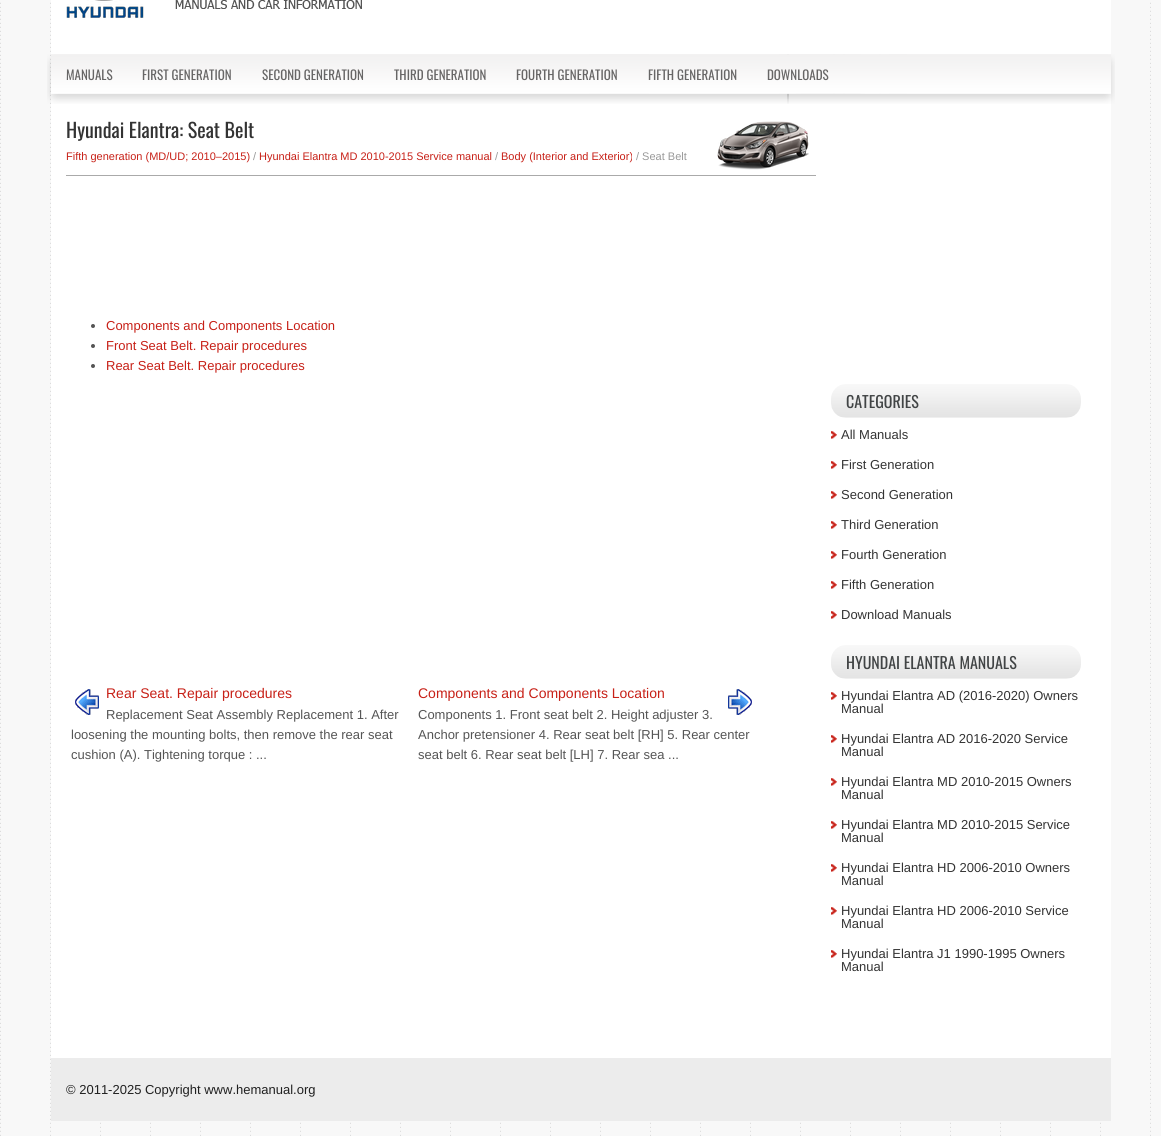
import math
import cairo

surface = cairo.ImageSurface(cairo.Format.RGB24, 1161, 1136)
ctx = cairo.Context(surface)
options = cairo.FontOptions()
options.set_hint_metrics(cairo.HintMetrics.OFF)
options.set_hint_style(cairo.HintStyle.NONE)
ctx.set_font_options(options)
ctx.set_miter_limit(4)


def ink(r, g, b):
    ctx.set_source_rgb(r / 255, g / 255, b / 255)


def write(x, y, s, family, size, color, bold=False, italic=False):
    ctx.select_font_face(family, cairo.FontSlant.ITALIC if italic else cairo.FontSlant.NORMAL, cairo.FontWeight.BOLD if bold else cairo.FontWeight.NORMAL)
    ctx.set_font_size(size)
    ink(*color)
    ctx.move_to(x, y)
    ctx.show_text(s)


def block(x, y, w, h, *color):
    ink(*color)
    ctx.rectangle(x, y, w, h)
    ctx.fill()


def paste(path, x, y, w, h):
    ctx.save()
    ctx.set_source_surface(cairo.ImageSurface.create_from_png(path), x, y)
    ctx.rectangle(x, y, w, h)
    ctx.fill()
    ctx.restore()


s1 = dict(family="Oswald", size=13, color=(103, 102, 102))
s2 = dict(family="Oswald", size=20, color=(51, 51, 51))
s3 = dict(family="Liberation Sans", size=11, color=(199, 32, 23))
s4 = dict(family="Liberation Sans", size=11, color=(153, 153, 153))
s5 = dict(family="Liberation Sans", size=13, color=(199, 32, 23))
s6 = dict(family="Liberation Sans", size=14, color=(199, 32, 23))
s7 = dict(family="Liberation Sans", size=13, color=(85, 85, 85))
s8 = dict(family="Oswald", size=16, color=(65, 68, 69))
s9 = dict(family="Liberation Sans", size=13, color=(51, 51, 51))
s10 = dict(family="Liberation Sans", size=13, color=(32, 32, 32))

ink(255, 255, 255)
ctx.paint()
paste("pic1.png", 0, 0, 1161, 1136)
block(51, 0, 1060, 1058, 255, 255, 255)
paste("pic2.png", 66, 0, 296, 18)
paste("pic3.png", 47, 54, 1068, 50)
write(66, 80, "MANUALS", **s1)
write(142, 80, "FIRST GENERATION", **s1)
write(262, 80, "SECOND GENERATION", **s1)
write(394, 80, "THIRD GENERATION", **s1)
write(516, 80, "FOURTH GENERATION", **s1)
write(648, 80, "FIFTH GENERATION", **s1)
write(767, 80, "DOWNLOADS", **s1)
write(66, 138, "Hyundai Elantra: Seat Belt", **s2)
paste("pic4.png", 717, 121, 92, 49)
block(66, 175, 750, 1, 170, 170, 170)
write(66, 160, "Fifth generation (MD/UD; 2010–2015)", **s3)
write(253, 160, "/", **s4)
write(259, 160, "Hyundai Elantra MD 2010-2015 Service manual", **s3)
write(495, 160, "/", **s4)
write(501, 160, "Body (Interior and Exterior)", **s3)
write(636, 160, "/ Seat Belt", **s4)
ink(85, 85, 85)
ctx.new_path()
ctx.arc(93, 326, 2, 0, 2 * math.pi)
ctx.fill()
write(106, 330, "Components and Components Location", **s5)
ink(85, 85, 85)
ctx.new_path()
ctx.arc(93, 346, 2, 0, 2 * math.pi)
ctx.fill()
write(106, 350, "Front Seat Belt. Repair procedures", **s5)
ink(85, 85, 85)
ctx.new_path()
ctx.arc(93, 366, 2, 0, 2 * math.pi)
ctx.fill()
write(106, 370, "Rear Seat Belt. Repair procedures", **s5)
paste("pic5.png", 75, 689, 24, 26)
write(106, 698, "Rear Seat. Repair procedures", **s6)
write(106, 719, "Replacement Seat Assembly Replacement 1. After", **s7)
write(71, 739, "loosening the mounting bolts, then remove the rear seat", **s7)
write(71, 759, "cushion (A). Tightening torque : ...", **s7)
write(418, 698, "Components and Components Location", **s6)
paste("pic6.png", 728, 689, 24, 26)
write(418, 719, "Components 1. Front seat belt 2. Height adjuster 3.", **s7)
write(418, 739, "Anchor pretensioner 4. Rear seat belt [RH] 5. Rear center", **s7)
write(418, 759, "seat belt 6. Rear seat belt [LH] 7. Rear sea ...", **s7)
paste("pic7.png", 831, 384, 250, 34)
write(846, 408, "CATEGORIES", **s8)
paste("pic8.png", 831, 431, 6, 8)
write(841, 439, "All Manuals", **s9)
paste("pic8.png", 831, 461, 6, 8)
write(841, 469, "First Generation", **s9)
paste("pic8.png", 831, 491, 6, 8)
write(841, 499, "Second Generation", **s9)
paste("pic8.png", 831, 521, 6, 8)
write(841, 529, "Third Generation", **s9)
paste("pic8.png", 831, 551, 6, 8)
write(841, 559, "Fourth Generation", **s9)
paste("pic8.png", 831, 581, 6, 8)
write(841, 589, "Fifth Generation", **s9)
paste("pic8.png", 831, 611, 6, 8)
write(841, 619, "Download Manuals", **s9)
paste("pic9.png", 831, 645, 250, 34)
write(846, 669, "HYUNDAI ELANTRA MANUALS", **s8)
paste("pic8.png", 831, 692, 6, 8)
write(841, 700, "Hyundai Elantra AD (2016-2020) Owners", **s9)
write(841, 713, "Manual", **s9)
paste("pic8.png", 831, 735, 6, 8)
write(841, 743, "Hyundai Elantra AD 2016-2020 Service", **s9)
write(841, 756, "Manual", **s9)
paste("pic8.png", 831, 778, 6, 8)
write(841, 786, "Hyundai Elantra MD 2010-2015 Owners", **s9)
write(841, 799, "Manual", **s9)
paste("pic8.png", 831, 821, 6, 8)
write(841, 829, "Hyundai Elantra MD 2010-2015 Service", **s9)
write(841, 842, "Manual", **s9)
paste("pic8.png", 831, 864, 6, 8)
write(841, 872, "Hyundai Elantra HD 2006-2010 Owners", **s9)
write(841, 885, "Manual", **s9)
paste("pic8.png", 831, 907, 6, 8)
write(841, 915, "Hyundai Elantra HD 2006-2010 Service", **s9)
write(841, 928, "Manual", **s9)
paste("pic8.png", 831, 950, 6, 8)
write(841, 958, "Hyundai Elantra J1 1990-1995 Owners", **s9)
write(841, 971, "Manual", **s9)
block(51, 1058, 1060, 63, 236, 236, 236)
write(66, 1094, "© 2011-2025 Copyright www.hemanual.org", **s10)
surface.write_to_png("screenshot.png")
